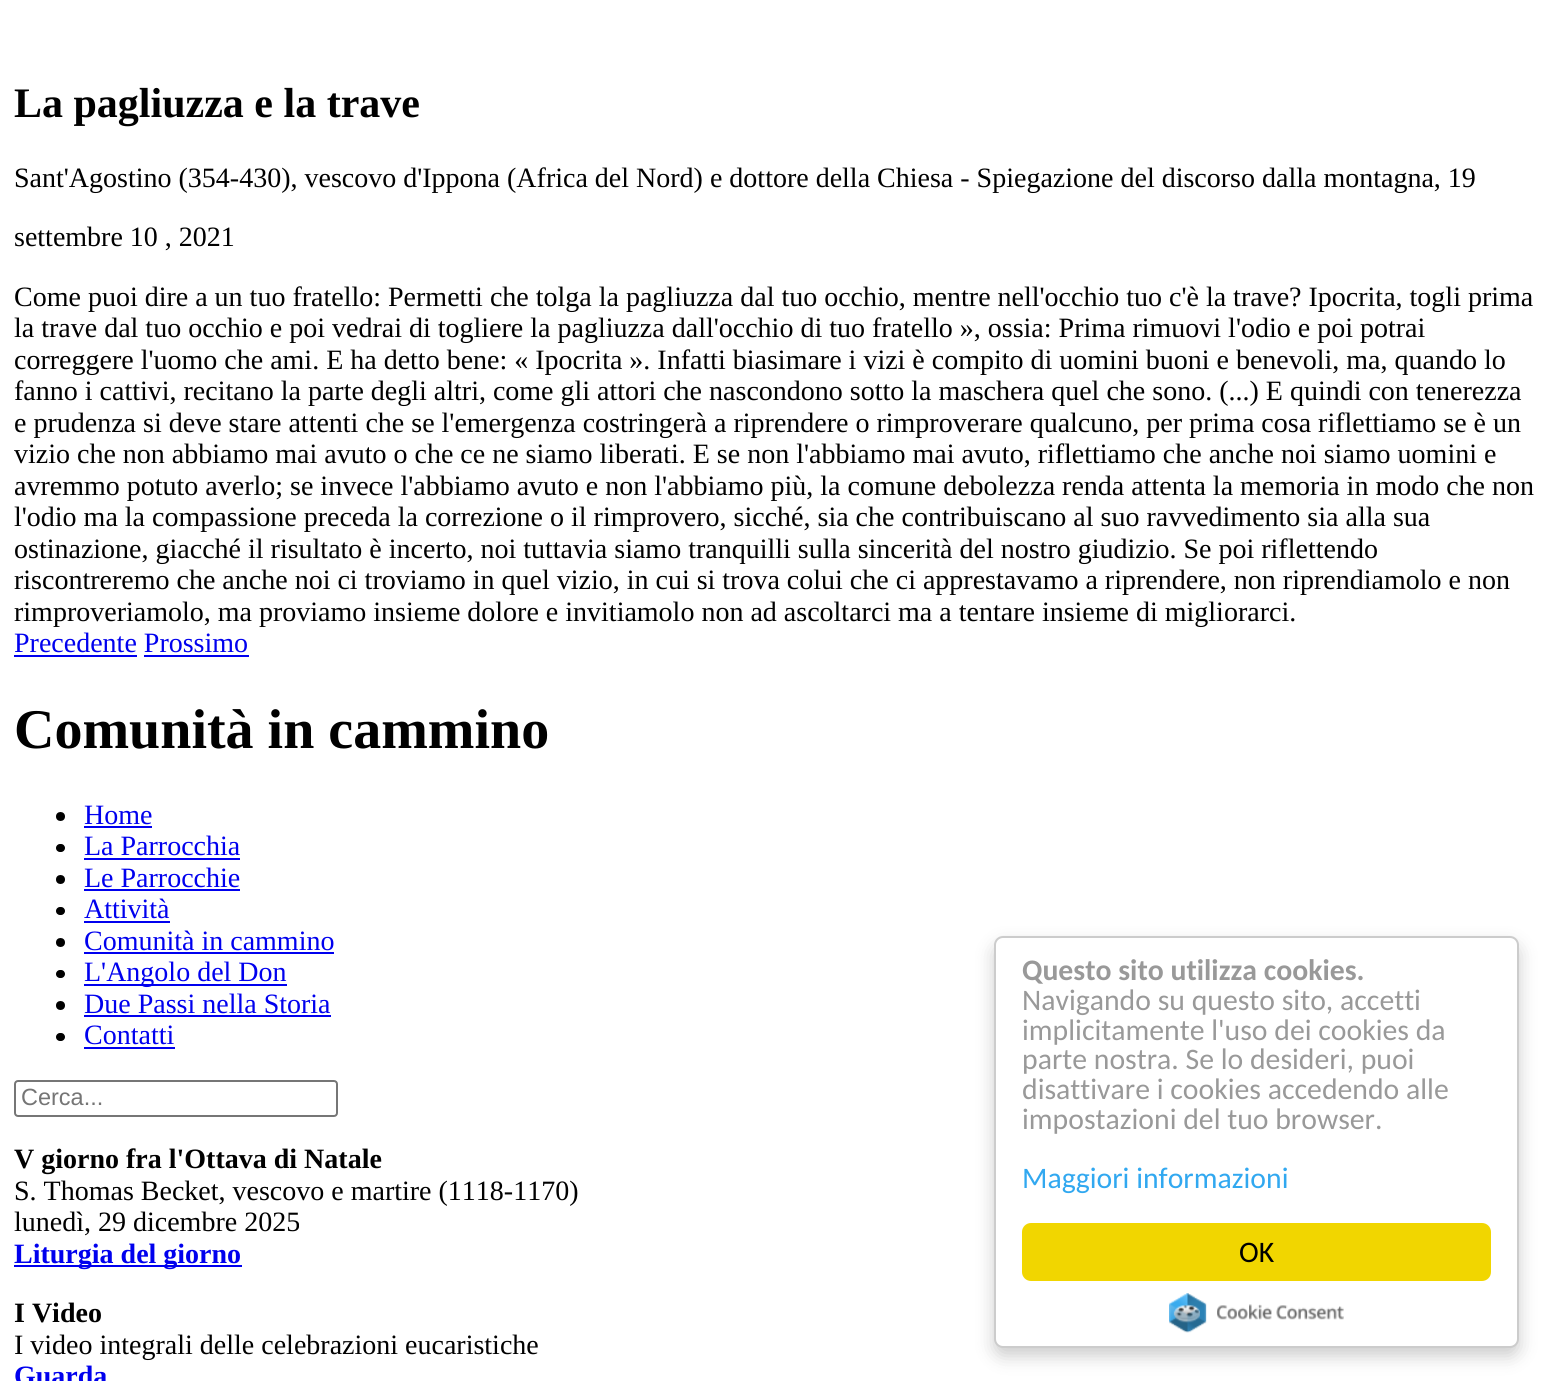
import math
import cairo

surface = cairo.ImageSurface(cairo.Format.RGB24, 1554, 1381)
ctx = cairo.Context(surface)
options = cairo.FontOptions()
options.set_hint_metrics(cairo.HintMetrics.OFF)
options.set_hint_style(cairo.HintStyle.NONE)
ctx.set_font_options(options)
ctx.set_miter_limit(4)


def ink(r, g, b):
    ctx.set_source_rgb(r / 255, g / 255, b / 255)


def write(x, y, s, family, size, color, bold=False, italic=False):
    ctx.select_font_face(family, cairo.FontSlant.ITALIC if italic else cairo.FontSlant.NORMAL, cairo.FontWeight.BOLD if bold else cairo.FontWeight.NORMAL)
    ctx.set_font_size(size)
    ink(*color)
    ctx.move_to(x, y)
    ctx.show_text(s)


def block(x, y, w, h, *color):
    ink(*color)
    ctx.rectangle(x, y, w, h)
    ctx.fill()


def round_path(x, y, w, h, r):
    ctx.new_sub_path()
    for i, (u, v) in enumerate([(x + w - r, y + h - r), (x + r, y + h - r), (x + r, y + r), (x + w - r, y + r)]):
        ctx.arc(u, v, r, i * math.pi / 2, (i + 1) * math.pi / 2)
    ctx.close_path()


def blur_box(x, y, w, h, r, blur, alpha):
    ctx.push_group_with_content(cairo.Content.ALPHA)
    ctx.set_operator(cairo.Operator.SOURCE)
    for i in range(15, -16, -2):
        e = blur * i / 6
        if min(w, h) + 2 * e > 0:
            ctx.set_source_rgba(0, 0, 0, alpha * math.erfc((i - 1) / 8.5) / 2)
            round_path(x - e, y - e, w + 2 * e, h + 2 * e, max(0, min(r + e + blur * .6, min(w, h) / 2 + e)))
            ctx.fill()
    ctx.mask(ctx.pop_group())


def paste(path, x, y, w, h):
    ctx.save()
    ctx.set_source_surface(cairo.ImageSurface.create_from_png(path), x, y)
    ctx.rectangle(x, y, w, h)
    ctx.fill()
    ctx.restore()


s1 = dict(family="Liberation Serif", size=42, color=(0, 0, 0), bold=True)
s2 = dict(family="Liberation Serif", size=28, color=(0, 0, 0))
s3 = dict(family="Liberation Serif", size=28, color=(0, 0, 238))
s4 = dict(family="Liberation Serif", size=56, color=(0, 0, 0), bold=True)
s5 = dict(family="Liberation Sans", size=23.5, color=(117, 117, 117))
s6 = dict(family="Liberation Serif", size=28, color=(0, 0, 0), bold=True)
s7 = dict(family="Liberation Serif", size=28, color=(0, 0, 238), bold=True)
s8 = dict(family="Carlito", size=29.75, color=(153, 153, 153), bold=True)
s9 = dict(family="Carlito", size=29.75, color=(153, 153, 153))
s10 = dict(family="Carlito", size=29.75, color=(49, 168, 240))
s11 = dict(family="Carlito", size=29.75, color=(0, 0, 0))

ink(255, 255, 255)
ctx.paint()
write(14, 117, "La pagliuzza e la trave", **s1)
write(14, 187, "Sant'Agostino (354-430), vescovo d'Ippona (Africa del Nord) e dottore della Chiesa - Spiegazione del discorso dalla montagna, 19", **s2)
write(14, 246, "settembre 10 , 2021", **s2)
write(14, 306, "Come puoi dire a un tuo fratello: Permetti che tolga la pagliuzza dal tuo occhio, mentre nell'occhio tuo c'è la trave? Ipocrita, togli prima", **s2)
write(14, 337, "la trave dal tuo occhio e poi vedrai di togliere la pagliuzza dall'occhio di tuo fratello », ossia: Prima rimuovi l'odio e poi potrai", **s2)
write(14, 369, "correggere l'uomo che ami. E ha detto bene: « Ipocrita ». Infatti biasimare i vizi è compito di uomini buoni e benevoli, ma, quando lo", **s2)
write(14, 400, "fanno i cattivi, recitano la parte degli altri, come gli attori che nascondono sotto la maschera quel che sono. (...) E quindi con tenerezza", **s2)
write(14, 432, "e prudenza si deve stare attenti che se l'emergenza costringerà a riprendere o rimproverare qualcuno, per prima cosa riflettiamo se è un", **s2)
write(14, 463, "vizio che non abbiamo mai avuto o che ce ne siamo liberati. E se non l'abbiamo mai avuto, riflettiamo che anche noi siamo uomini e", **s2)
write(14, 495, "avremmo potuto averlo; se invece l'abbiamo avuto e non l'abbiamo più, la comune debolezza renda attenta la memoria in modo che non", **s2)
write(14, 526, "l'odio ma la compassione preceda la correzione o il rimprovero, sicché, sia che contribuiscano al suo ravvedimento sia alla sua", **s2)
write(14, 558, "ostinazione, giacché il risultato è incerto, noi tuttavia siamo tranquilli sulla sincerità del nostro giudizio. Se poi riflettendo", **s2)
write(14, 589, "riscontreremo che anche noi ci troviamo in quel vizio, in cui si trova colui che ci apprestavamo a riprendere, non riprendiamolo e non", **s2)
write(14, 621, "rimproveriamolo, ma proviamo insieme dolore e invitiamolo non ad ascoltarci ma a tentare insieme di migliorarci.", **s2)
write(14, 652, "Precedente Prossimo", **s3)
block(14, 655, 123, 2, 0, 0, 238)
block(144, 655, 105, 2, 0, 0, 238)
write(14, 748, "Comunità in cammino", **s4)
ctx.new_path()
ctx.arc(60.5, 816.5, 4.5, 0, 2 * math.pi)
ctx.fill()
write(84, 824, "Home", **s3)
block(84, 826, 68, 2, 0, 0, 238)
ink(0, 0, 0)
round_path(56, 844, 9, 8, 4)
ctx.fill()
write(84, 855, "La Parrocchia", **s3)
block(84, 858, 156, 2, 0, 0, 238)
ink(0, 0, 0)
ctx.new_path()
ctx.arc(60.5, 879.5, 4.5, 0, 2 * math.pi)
ctx.fill()
write(84, 887, "Le Parrocchie", **s3)
block(84, 889, 156, 2, 0, 0, 238)
ink(0, 0, 0)
round_path(56, 907, 9, 8, 4)
ctx.fill()
write(84, 918, "Attività", **s3)
block(84, 921, 86, 2, 0, 0, 238)
ink(0, 0, 0)
ctx.new_path()
ctx.arc(60.5, 942.5, 4.5, 0, 2 * math.pi)
ctx.fill()
write(84, 950, "Comunità in cammino", **s3)
block(84, 952, 250, 2, 0, 0, 238)
ink(0, 0, 0)
round_path(56, 970, 9, 8, 4)
ctx.fill()
block(84, 984, 203, 2, 0, 0, 238)
write(84, 981, "L'Angolo del Don", **s3)
ink(0, 0, 0)
ctx.new_path()
ctx.arc(60.5, 1005.5, 4.5, 0, 2 * math.pi)
ctx.fill()
write(84, 1013, "Due Passi nella Storia", **s3)
block(84, 1015, 247, 2, 0, 0, 238)
ink(0, 0, 0)
round_path(56, 1033, 9, 8, 4)
ctx.fill()
write(84, 1044, "Contatti", **s3)
block(84, 1047, 91, 2, 0, 0, 238)
round_path(15, 1081, 322, 35, 3)
ink(118, 118, 118)
ctx.stroke()
write(21, 1105, "Cerca...", **s5)
write(14, 1168, "V giorno fra l'Ottava di Natale", **s6)
write(14, 1200, "S. Thomas Becket, vescovo e martire (1118-1170)", **s2)
write(14, 1231, "lunedì, 29 dicembre 2025", **s2)
block(14, 1265, 228, 2, 0, 0, 238)
write(14, 1263, "Liturgia del giorno", **s7)
write(14, 1322, "I Video", **s6)
write(14, 1354, "I video integrali delle celebrazioni eucaristiche", **s2)
write(14, 1385, "Guarda", **s7)
ink(0, 0, 0)
blur_box(994, 945, 525, 411, 9, 9, 0.2)
ink(255, 255, 255)
round_path(995, 937, 523, 410, 8)
ctx.fill_preserve()
ink(204, 204, 204)
ctx.stroke()
write(1022, 980, "Questo sito utilizza cookies.", **s8)
write(1022, 1010, "Navigando su questo sito, accetti", **s9)
write(1022, 1040, "implicitamente l'uso dei cookies da", **s9)
write(1022, 1069, "parte nostra. Se lo desideri, puoi", **s9)
write(1022, 1099, "disattivare i cookies accedendo alle", **s9)
write(1022, 1129, "impostazioni del tuo browser.", **s9)
write(1022, 1188, "Maggiori informazioni", **s10)
ink(241, 214, 0)
round_path(1022, 1223, 469, 58, 9)
ctx.fill()
write(1239, 1262, "OK", **s11)
paste("pic1.png", 1169, 1293, 175, 40)
surface.write_to_png("screenshot.png")
